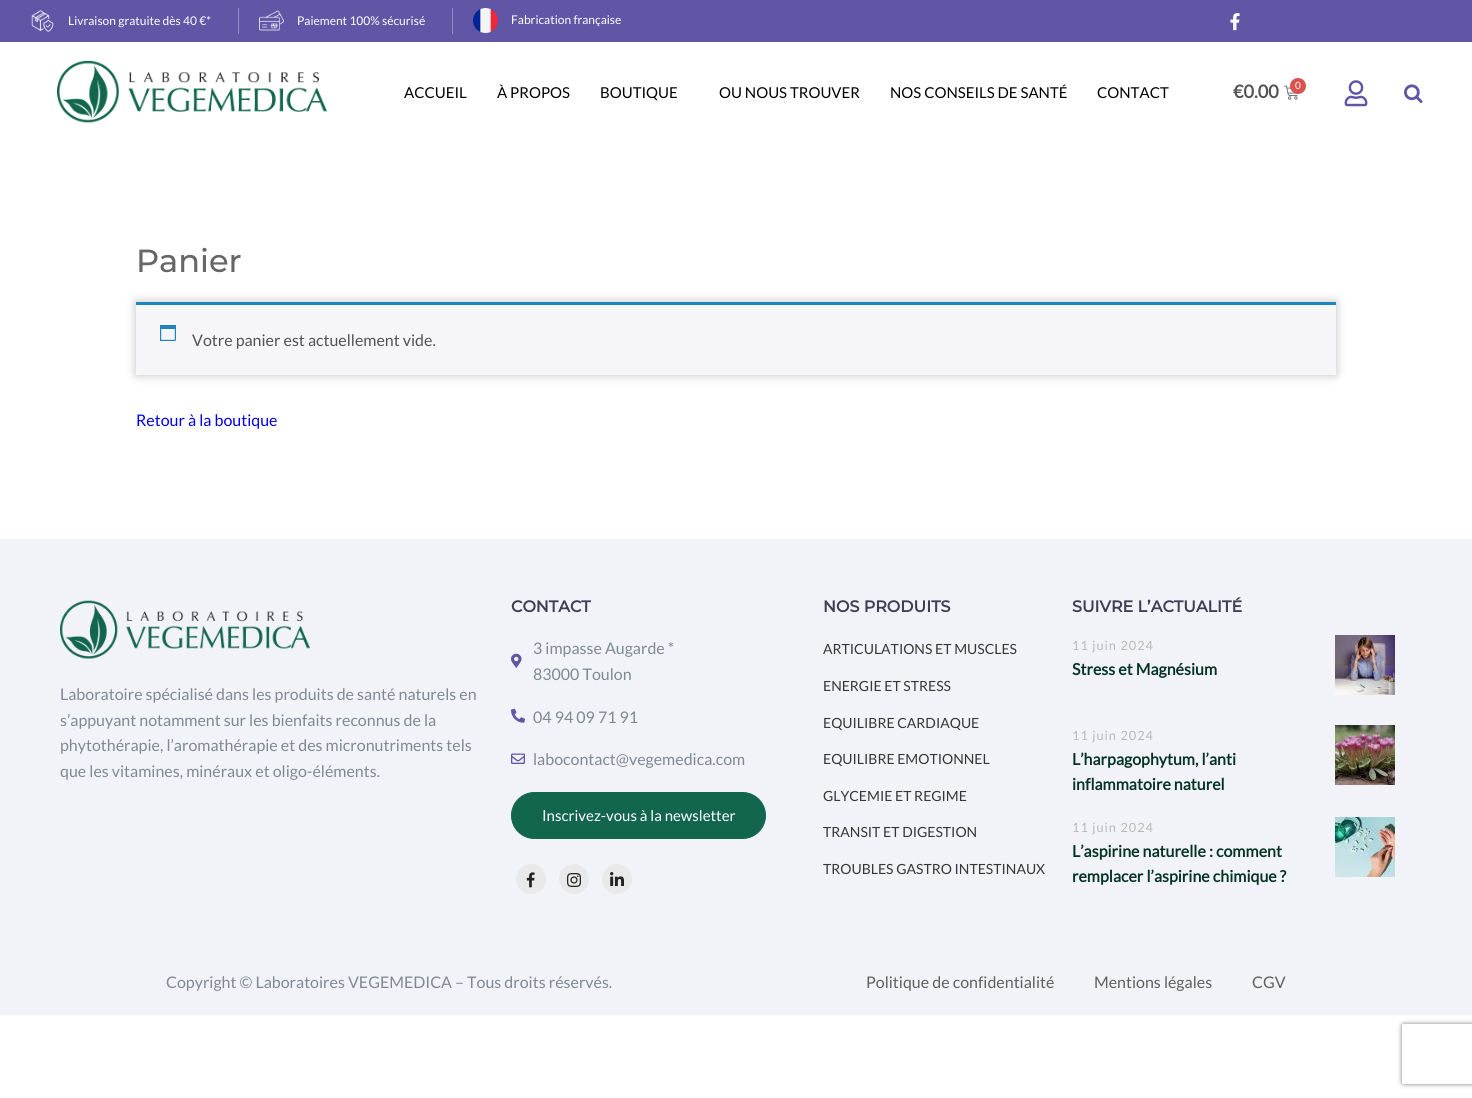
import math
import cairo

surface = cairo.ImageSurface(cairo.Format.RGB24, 1472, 1098)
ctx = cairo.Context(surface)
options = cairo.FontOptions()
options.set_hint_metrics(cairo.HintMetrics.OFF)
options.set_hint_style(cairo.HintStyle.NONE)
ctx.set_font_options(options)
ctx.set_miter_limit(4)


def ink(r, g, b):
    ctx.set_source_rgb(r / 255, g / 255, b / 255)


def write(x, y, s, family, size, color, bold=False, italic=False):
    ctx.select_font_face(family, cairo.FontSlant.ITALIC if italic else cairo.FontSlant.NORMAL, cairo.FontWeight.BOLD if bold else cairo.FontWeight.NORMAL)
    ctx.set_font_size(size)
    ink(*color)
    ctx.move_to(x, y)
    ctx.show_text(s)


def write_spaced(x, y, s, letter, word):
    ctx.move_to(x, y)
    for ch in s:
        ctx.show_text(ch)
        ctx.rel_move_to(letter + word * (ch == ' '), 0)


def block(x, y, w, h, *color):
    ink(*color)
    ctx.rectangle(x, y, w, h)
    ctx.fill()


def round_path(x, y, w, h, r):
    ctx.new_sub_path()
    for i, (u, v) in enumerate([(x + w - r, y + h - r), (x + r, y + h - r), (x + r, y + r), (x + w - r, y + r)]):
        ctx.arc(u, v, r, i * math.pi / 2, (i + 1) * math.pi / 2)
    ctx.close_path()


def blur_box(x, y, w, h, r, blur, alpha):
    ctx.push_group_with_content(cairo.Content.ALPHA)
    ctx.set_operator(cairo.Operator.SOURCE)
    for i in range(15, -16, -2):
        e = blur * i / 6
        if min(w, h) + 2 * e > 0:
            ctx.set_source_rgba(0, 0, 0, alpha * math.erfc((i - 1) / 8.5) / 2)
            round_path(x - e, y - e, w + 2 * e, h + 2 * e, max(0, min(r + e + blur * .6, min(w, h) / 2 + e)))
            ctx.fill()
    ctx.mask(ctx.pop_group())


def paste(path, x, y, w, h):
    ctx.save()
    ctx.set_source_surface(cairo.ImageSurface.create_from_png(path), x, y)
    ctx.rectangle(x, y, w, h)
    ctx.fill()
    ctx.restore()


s1 = dict(family="Lato", size=12, color=(255, 255, 255))
s2 = dict(family="Lato", size=15, color=(0, 0, 0))
s3 = dict(family="Lato", size=18, color=(82, 82, 82), bold=True)
s4 = dict(family="Lato", size=10, color=(255, 255, 255))
s5 = dict(family="Montserrat Medium", size=32, color=(102, 102, 102))
s6 = dict(family="Lato", size=16, color=(82, 82, 82))
s7 = dict(family="Lato", size=16, color=(0, 0, 238))
s8 = dict(family="Lato", size=16, color=(128, 136, 145))
s9 = dict(family="Montserrat", size=16, color=(65, 61, 85), bold=True)
s10 = dict(family="Lato", size=15, color=(255, 255, 255))
s11 = dict(family="Lato", size=14, color=(55, 55, 55))
s12 = dict(family="Lato", size=16, color=(5, 51, 37), bold=True)
s13 = dict(family="Lato", size=16, color=(95, 95, 95))

ink(255, 255, 255)
ctx.paint()
block(0, 0, 1472, 42, 97, 85, 166)
block(238, 8, 1, 26, 148, 139, 194)
paste("pic1.png", 31, 10, 23, 22)
write(68, 25, "Livraison gratuite dès 40 €*", **s1)
block(452, 8, 1, 26, 148, 139, 194)
paste("pic2.png", 259, 10, 25, 21)
write(297, 25, "Paiement 100% sécurisé", **s1)
paste("pic3.png", 473, 8, 25, 25)
write(511, 24, "Fabrication française", **s1)
paste("pic4.png", 1230, 13, 10, 18)
paste("pic5.png", 57, 60, 270, 63)
write(404, 98, "ACCUEIL", **s2)
write(497, 98, "À PROPOS", **s2)
write(600, 98, "BOUTIQUE", **s2)
write(719, 98, "OU NOUS TROUVER", **s2)
write(890, 98, "NOS CONSEILS DE SANTÉ", **s2)
write(1097, 98, "CONTACT", **s2)
write(1233, 98, "€0.00", **s3)
paste("pic6.png", 1284, 85, 14, 15)
ink(217, 83, 79)
ctx.arc(1298, 86, 8, 0, 2 * math.pi)
ctx.fill()
write(1295, 89, "0", **s4)
paste("pic7.png", 1344, 80, 24, 27)
paste("pic8.png", 1404, 84, 19, 19)
write(136, 272, "Panier", **s5)
ink(0, 0, 0)
blur_box(136, 302, 1200, 73, 0, 5, 0.25)
block(136, 305, 1200, 70, 246, 245, 248)
block(136, 302, 1200, 3, 30, 133, 190)
paste("pic9.png", 160, 325, 16, 16)
write(192, 346, "Votre panier est actuellement vide.", **s6)
write(136, 426, "Retour à la boutique", **s7)
block(0, 539, 1472, 476, 241, 243, 248)
paste("pic10.png", 60, 600, 250, 59)
write(60, 700, "Laboratoire spécialisé dans les produits de santé naturels en", **s8)
write(60, 726, "s’appuyant notamment sur les bienfaits reconnus de la", **s8)
write(60, 751, "phytothérapie, l’aromathérapie et des micronutriments tels", **s8)
write(60, 777, "que les vitamines, minéraux et oligo-éléments.", **s8)
write(511, 612, "CONTACT", **s9)
paste("pic11.png", 511, 653, 11, 15)
write(533, 654, "3 impasse Augarde *", **s8)
write(533, 680, "83000 Toulon", **s8)
paste("pic12.png", 511, 708, 14, 15)
write(533, 723, "04 94 09 71 91", **s8)
paste("pic13.png", 511, 753, 14, 11)
write(533, 765, "labocontact@vegemedica.com", **s8)
ink(18, 102, 77)
round_path(511.5, 792.5, 254, 46, 23)
ctx.fill_preserve()
ctx.set_line_width(1)
ctx.stroke()
write(542, 821, "Inscrivez-vous à la newsletter", **s10)
ink(233, 233, 233)
ctx.new_path()
ctx.arc(531, 879, 15, 0, 2 * math.pi)
ctx.fill()
paste("pic14.png", 526, 872, 9, 16)
ctx.arc(574, 879, 15, 0, 2 * math.pi)
ctx.fill()
paste("pic15.png", 567, 873, 14, 14)
ctx.arc(617, 879, 15, 0, 2 * math.pi)
ctx.fill()
paste("pic16.png", 610, 872, 14, 14)
write(823, 612, "NOS PRODUITS", **s9)
write(823, 654, "ARTICULATIONS ET MUSCLES", **s11)
write(823, 691, "ENERGIE ET STRESS", **s11)
write(823, 728, "EQUILIBRE CARDIAQUE", **s11)
write(823, 764, "EQUILIBRE EMOTIONNEL", **s11)
write(823, 801, "GLYCEMIE ET REGIME", **s11)
write(823, 837, "TRANSIT ET DIGESTION", **s11)
write(823, 874, "TROUBLES GASTRO INTESTINAUX", **s11)
write(1072, 612, "SUIVRE L’ACTUALITÉ", **s9)
ctx.select_font_face("Lato")
ctx.set_font_size(12.75)
ink(185, 185, 185)
write_spaced(1072, 650, "11 juin 2024", 1, 0)
paste("pic17.png", 1335, 635, 60, 60)
write(1072, 675, "Stress et Magnésium", **s12)
ctx.select_font_face("Lato")
ctx.set_font_size(12.75)
ink(185, 185, 185)
write_spaced(1072, 740, "11 juin 2024", 1, 0)
paste("pic18.png", 1335, 725, 60, 60)
write(1072, 765, "L’harpagophytum, l’anti", **s12)
write(1072, 790, "inflammatoire naturel", **s12)
ctx.select_font_face("Lato")
ctx.set_font_size(12.75)
ink(185, 185, 185)
write_spaced(1072, 832, "11 juin 2024", 1, 0)
paste("pic19.png", 1335, 817, 60, 60)
write(1072, 857, "L’aspirine naturelle : comment", **s12)
write(1072, 882, "remplacer l’aspirine chimique ?", **s12)
write(166, 988, "Copyright © Laboratoires VEGEMEDICA – Tous droits réservés.", **s8)
write(866, 988, "Politique de confidentialité", **s13)
write(1094, 988, "Mentions légales", **s13)
write(1252, 988, "CGV", **s13)
ctx.save()
ctx.set_fill_rule(cairo.FillRule.EVEN_ODD)
ctx.new_path()
ctx.move_to(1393, 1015)
ctx.line_to(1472, 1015)
ctx.line_to(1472, 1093)
ctx.line_to(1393, 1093)
ctx.close_path()
ctx.move_to(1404, 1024)
ctx.line_to(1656, 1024)
ctx.curve_to(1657, 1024, 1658, 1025, 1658, 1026)
ctx.line_to(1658, 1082)
ctx.curve_to(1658, 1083, 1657, 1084, 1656, 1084)
ctx.line_to(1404, 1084)
ctx.curve_to(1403, 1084, 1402, 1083, 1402, 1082)
ctx.line_to(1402, 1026)
ctx.curve_to(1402, 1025, 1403, 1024, 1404, 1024)
ctx.close_path()
ctx.clip()
ink(128, 128, 128)
blur_box(1402, 1024, 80, 60, 2, 2.5, 1)
ctx.restore()
surface.write_to_png("screenshot.png")
